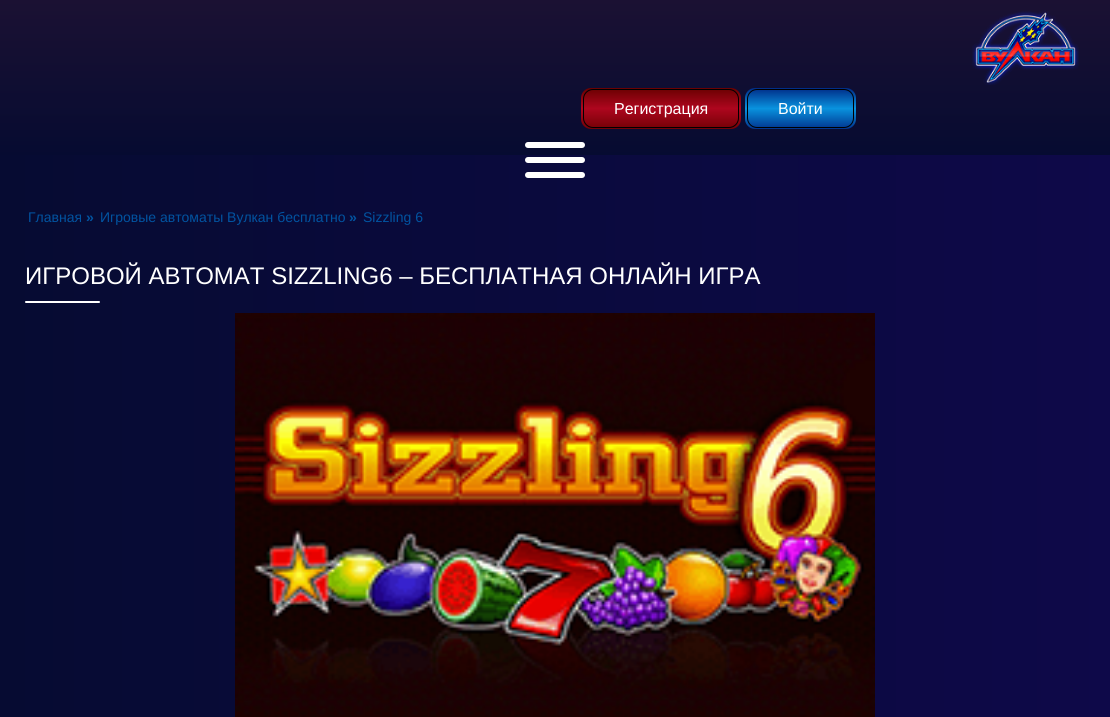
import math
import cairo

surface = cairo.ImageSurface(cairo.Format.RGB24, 1110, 717)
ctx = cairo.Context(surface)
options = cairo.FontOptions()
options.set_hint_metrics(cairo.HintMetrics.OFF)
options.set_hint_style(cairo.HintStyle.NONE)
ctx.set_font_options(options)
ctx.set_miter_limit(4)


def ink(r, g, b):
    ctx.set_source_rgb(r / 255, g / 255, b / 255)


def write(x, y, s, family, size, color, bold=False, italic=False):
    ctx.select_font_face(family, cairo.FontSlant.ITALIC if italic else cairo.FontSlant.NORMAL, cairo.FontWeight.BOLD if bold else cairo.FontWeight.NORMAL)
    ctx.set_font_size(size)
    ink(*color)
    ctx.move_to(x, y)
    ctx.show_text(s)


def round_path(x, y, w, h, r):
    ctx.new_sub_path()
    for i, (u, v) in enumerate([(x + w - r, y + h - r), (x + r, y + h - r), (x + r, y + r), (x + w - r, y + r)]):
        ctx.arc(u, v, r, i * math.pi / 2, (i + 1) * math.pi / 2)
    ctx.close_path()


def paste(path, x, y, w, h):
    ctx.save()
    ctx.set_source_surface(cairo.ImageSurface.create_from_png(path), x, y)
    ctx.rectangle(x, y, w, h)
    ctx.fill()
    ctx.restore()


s1 = dict(family="Liberation Sans", size=16, color=(255, 255, 255))
s2 = dict(family="Liberation Sans", size=14, color=(1, 83, 160))
s3 = dict(family="Liberation Sans", size=14, color=(1, 83, 160), bold=True)
s4 = dict(family="Liberation Sans", size=24, color=(255, 255, 255))

ink(255, 255, 255)
ctx.paint()
gradient = cairo.LinearGradient(0, 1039, 1110, 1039)
gradient.add_color_stop_rgba(0, 0.024, 0.043, 0.196, 1)
gradient.add_color_stop_rgba(1, 0.055, 0.035, 0.286, 1)
ctx.set_source(gradient)
ctx.rectangle(0, 155, 1110, 562)
ctx.fill()
gradient = cairo.LinearGradient(555, 155, 555, 0)
gradient.add_color_stop_rgba(0, 0.024, 0.043, 0.192, 1)
gradient.add_color_stop_rgba(1, 0.106, 0.067, 0.2, 1)
ctx.set_source(gradient)
ctx.rectangle(0, 0, 1110, 155)
ctx.fill()
paste("pic1.png", 972, 10, 107, 75)
gradient = cairo.LinearGradient(661, 129, 661, 88)
gradient.add_color_stop_rgba(0, 0.451, 0.004, 0.024, 1)
gradient.add_color_stop_rgba(0.5, 0.682, 0.024, 0.118, 1)
gradient.add_color_stop_rgba(1, 0.412, 0.004, 0.004, 1)
ctx.set_source(gradient)
round_path(581, 88, 160, 41, 10)
ctx.fill()
round_path(583.5, 89.5, 155, 38, 9.5)
ink(0, 0, 0)
ctx.set_line_width(1)
ctx.stroke()
write(614, 114, "Регистрация", **s1)
gradient = cairo.LinearGradient(801, 129, 801, 88)
gradient.add_color_stop_rgba(0, 0.004, 0.204, 0.557, 1)
gradient.add_color_stop_rgba(0.5, 0.035, 0.573, 0.871, 1)
gradient.add_color_stop_rgba(1, 0, 0.169, 0.529, 1)
ctx.set_source(gradient)
round_path(745, 88, 111, 41, 10)
ctx.fill()
round_path(747.5, 89.5, 106, 38, 9.5)
ink(0, 0, 0)
ctx.stroke()
write(778, 114, "Войти", **s1)
round_path(525, 142, 60, 6, 3)
ctx.fill()
round_path(525, 157, 60, 6, 3)
ctx.fill()
round_path(525, 172, 60, 6, 3)
ctx.fill()
write(28, 222, "Главная", **s2)
write(86, 222, "»", **s3)
write(100, 222, "Игровые автоматы Вулкан бесплатно", **s2)
write(349, 222, "»", **s3)
write(363, 222, "Sizzling 6", **s2)
write(25, 284, "ИГРОВОЙ АВТОМАТ SIZZLING6 – БЕСПЛАТНАЯ ОНЛАЙН ИГРА", **s4)
round_path(25, 301, 75, 2, 1)
ctx.fill()
paste("pic2.png", 235, 313, 640, 404)
surface.write_to_png("screenshot.png")
